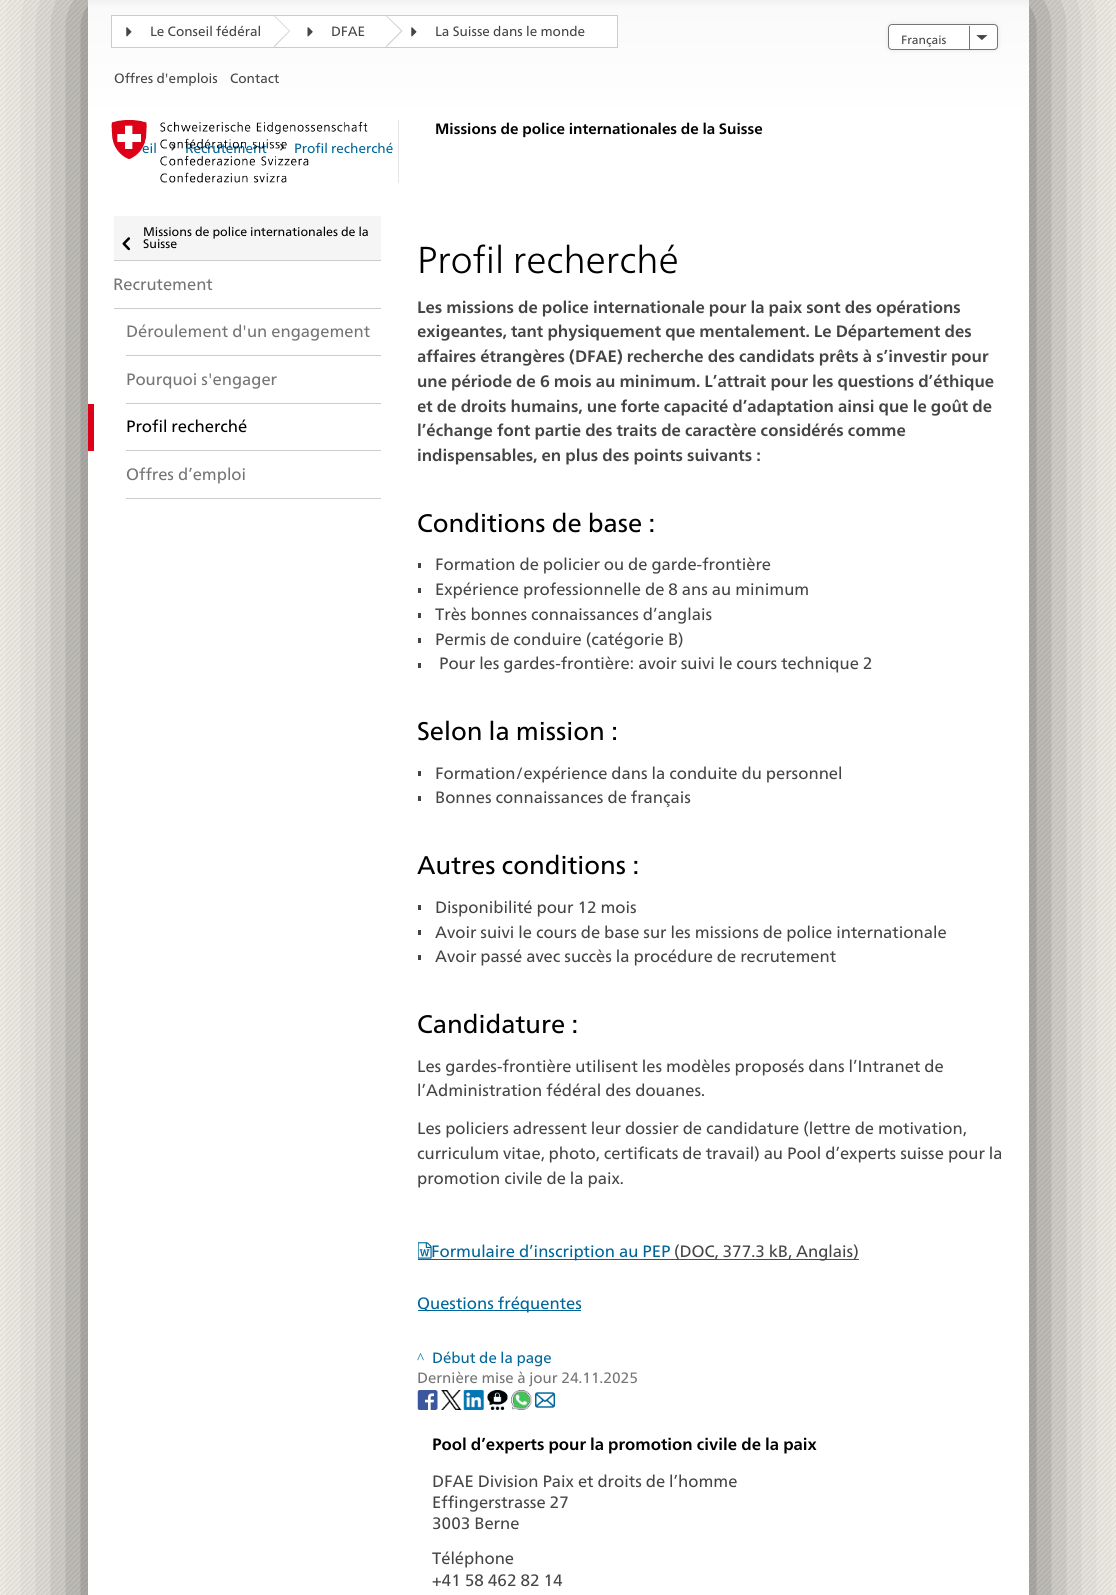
import math
import cairo

surface = cairo.ImageSurface(cairo.Format.RGB24, 1116, 1595)
ctx = cairo.Context(surface)
options = cairo.FontOptions()
options.set_hint_metrics(cairo.HintMetrics.OFF)
options.set_hint_style(cairo.HintStyle.NONE)
ctx.set_font_options(options)
ctx.set_miter_limit(4)


def ink(r, g, b):
    ctx.set_source_rgb(r / 255, g / 255, b / 255)


def write(x, y, s, family, size, color, bold=False, italic=False):
    ctx.select_font_face(family, cairo.FontSlant.ITALIC if italic else cairo.FontSlant.NORMAL, cairo.FontWeight.BOLD if bold else cairo.FontWeight.NORMAL)
    ctx.set_font_size(size)
    ink(*color)
    ctx.move_to(x, y)
    ctx.show_text(s)


def block(x, y, w, h, *color):
    ink(*color)
    ctx.rectangle(x, y, w, h)
    ctx.fill()


def round_path(x, y, w, h, r):
    ctx.new_sub_path()
    for i, (u, v) in enumerate([(x + w - r, y + h - r), (x + r, y + h - r), (x + r, y + r), (x + w - r, y + r)]):
        ctx.arc(u, v, r, i * math.pi / 2, (i + 1) * math.pi / 2)
    ctx.close_path()


def blur_box(x, y, w, h, r, blur, alpha):
    ctx.push_group_with_content(cairo.Content.ALPHA)
    ctx.set_operator(cairo.Operator.SOURCE)
    for i in range(15, -16, -2):
        e = blur * i / 6
        if min(w, h) + 2 * e > 0:
            ctx.set_source_rgba(0, 0, 0, alpha * math.erfc((i - 1) / 8.5) / 2)
            round_path(x - e, y - e, w + 2 * e, h + 2 * e, max(0, min(r + e + blur * .6, min(w, h) / 2 + e)))
            ctx.fill()
    ctx.mask(ctx.pop_group())


def paste(path, x, y, w, h):
    ctx.save()
    ctx.set_source_surface(cairo.ImageSurface.create_from_png(path), x, y)
    ctx.rectangle(x, y, w, h)
    ctx.fill()
    ctx.restore()


s1 = dict(family="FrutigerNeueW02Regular", size=13.5, color=(69, 69, 69))
s2 = dict(family="FrutigerNeueW02Regular", size=12, color=(69, 69, 69))
s3 = dict(family="FrutigerNeueW02Regular", size=13.5, color=(0, 102, 153))
s4 = dict(family="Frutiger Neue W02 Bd", size=15, color=(0, 0, 0), bold=True)
s5 = dict(family="FrutigerNeueW02Regular", size=12.4, color=(0, 0, 0))
s6 = dict(family="FrutigerNeueW02Regular", size=16.5, color=(117, 117, 117))
s7 = dict(family="FrutigerNeueW02Regular", size=16.5, color=(0, 0, 0))
s8 = dict(family="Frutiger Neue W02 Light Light", size=37.5, color=(0, 0, 0))
s9 = dict(family="Frutiger Neue W02 Bd", size=16.5, color=(69, 69, 69), bold=True)
s10 = dict(family="FrutigerNeueW02Regular", size=25.5, color=(0, 0, 0))
s11 = dict(family="FrutigerNeueW02Regular", size=16.5, color=(69, 69, 69))
s12 = dict(family="FrutigerNeueW02Regular", size=16.5, color=(0, 102, 153))
s13 = dict(family="Liberation Serif", size=15, color=(0, 102, 153))
s14 = dict(family="FrutigerNeueW02Regular", size=15, color=(0, 102, 153))
s15 = dict(family="FrutigerNeueW02Regular", size=15, color=(117, 117, 117))
s16 = dict(family="Frutiger Neue W02 Bd", size=16.5, color=(0, 0, 0), bold=True)

ink(255, 255, 255)
ctx.paint()
paste("pic1.png", 0, 0, 1116, 1595)
ink(0, 0, 0)
blur_box(88, 0, 941, 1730, 0, 45, 0.6)
block(88, 120, 941, 1475, 255, 255, 255)
gradient = cairo.LinearGradient(558, 0, 558, 120)
gradient.add_color_stop_rgba(0, 0.949, 0.949, 0.949, 1)
gradient.add_color_stop_rgba(0.07, 0.98, 0.98, 0.98, 1)
gradient.add_color_stop_rgba(1, 1, 1, 1, 1)
ctx.set_source(gradient)
ctx.rectangle(88, 0, 941, 120)
ctx.fill()
ink(255, 255, 255)
ctx.rectangle(111.5, 15.5, 506, 32)
ctx.fill_preserve()
ink(204, 204, 204)
ctx.set_line_width(1)
ctx.stroke()
ctx.new_path()
ctx.move_to(274, 47.5)
ctx.line_to(274, 15)
ctx.line_to(290, 31)
ctx.close_path()
ctx.fill()
paste("pic2.png", 126, 27, 6, 10)
write(150, 36, "Le Conseil fédéral", **s1)
ink(255, 255, 255)
ctx.new_path()
ctx.move_to(274, 46)
ctx.line_to(274, 16)
ctx.line_to(289, 31)
ctx.close_path()
ctx.fill()
ink(204, 204, 204)
ctx.new_path()
ctx.move_to(386, 47.5)
ctx.line_to(386, 15)
ctx.line_to(402.5, 31)
ctx.close_path()
ctx.fill()
paste("pic3.png", 307, 27, 6, 10)
write(331, 36, "DFAE", **s1)
ink(255, 255, 255)
ctx.new_path()
ctx.move_to(386, 46)
ctx.line_to(386, 16)
ctx.line_to(401, 31)
ctx.close_path()
ctx.fill()
paste("pic2.png", 411, 27, 6, 10)
write(435, 36, "La Suisse dans le monde", **s1)
ink(0, 0, 0)
blur_box(888, 24, 110, 26, 4, 2.5, 0.1)
ink(255, 255, 255)
round_path(888.5, 24.5, 109, 25, 3.5)
ctx.fill_preserve()
ink(117, 117, 117)
ctx.stroke()
write(901, 44, "Français", **s2)
paste("pic4.png", 976, 35, 12, 5)
block(969, 26, 1, 23, 117, 117, 117)
write(114, 83, "Offres d'emplois", **s1)
write(230, 83, "Contact", **s1)
write(142, 153, "eil", **s3)
paste("pic6.png", 171, 143, 5, 8)
write(185, 153, "Recrutement", **s3)
paste("pic7.png", 280, 143, 5, 8)
write(294, 153, "Profil recherché", **s3)
paste("pic5.png", 111, 120, 257, 63)
block(398, 120, 1, 63, 229, 229, 229)
write(435, 134, "Missions de police internationales de la Suisse", **s4)
block(114, 216, 267, 44, 245, 245, 245)
block(114, 260, 267, 1, 204, 204, 204)
write(143, 236, "Missions de police internationales de la", **s5)
paste("pic8.png", 122, 237, 9, 14)
write(143, 248, "Suisse", **s5)
block(114, 308, 267, 1, 204, 204, 204)
write(113, 290, "Recrutement", **s6)
block(126, 355, 255, 1, 204, 204, 204)
write(126, 337, "Déroulement d'un engagement", **s6)
block(126, 403, 255, 1, 204, 204, 204)
write(126, 385, "Pourquoi s'engager", **s6)
block(88, 404, 6, 47, 220, 0, 24)
block(126, 450, 255, 1, 204, 204, 204)
write(126, 432, "Profil recherché", **s7)
block(126, 498, 255, 1, 204, 204, 204)
write(126, 480, "Offres d’emploi", **s6)
write(417, 273, "Profil recherché", **s8)
write(417, 313, "Les missions de police internationale pour la paix sont des opérations", **s9)
ctx.save()
ctx.rectangle(418, 193, 587, 1217)
ctx.clip()
write(417, 337, "exigeantes, tant physiquement que mentalement. Le Département des", **s9)
write(417, 362, "affaires étrangères (DFAE) recherche des candidats prêts à s’investir pour", **s9)
ctx.restore()
write(417, 387, "une période de 6 mois au minimum. L’attrait pour les questions d’éthique", **s9)
ctx.save()
ctx.rectangle(418, 193, 587, 1217)
ctx.clip()
write(417, 412, "et de droits humains, une forte capacité d’adaptation ainsi que le goût de", **s9)
ctx.restore()
write(417, 436, "l’échange font partie des traits de caractère considérés comme", **s9)
write(417, 461, "indispensables, en plus des points suivants :", **s9)
write(417, 532, "Conditions de base :", **s10)
block(418, 563, 3, 5, 69, 69, 69)
write(435, 570, "Formation de policier ou de garde-frontière", **s11)
block(418, 588, 3, 5, 69, 69, 69)
write(435, 595, "Expérience professionnelle de 8 ans au minimum", **s11)
block(418, 613, 3, 5, 69, 69, 69)
write(435, 620, "Très bonnes connaissances d’anglais", **s11)
block(418, 638, 3, 5, 69, 69, 69)
write(435, 645, "Permis de conduire (catégorie B)", **s11)
block(418, 663, 3, 5, 69, 69, 69)
write(439, 669, "Pour les gardes-frontière: avoir suivi le cours technique 2", **s11)
write(417, 740, "Selon la mission :", **s10)
block(418, 771, 3, 5, 69, 69, 69)
write(435, 779, "Formation/expérience dans la conduite du personnel", **s11)
block(418, 796, 3, 5, 69, 69, 69)
write(435, 803, "Bonnes connaissances de français", **s11)
write(417, 874, "Autres conditions :", **s10)
block(418, 905, 3, 5, 69, 69, 69)
write(435, 913, "Disponibilité pour 12 mois", **s11)
block(418, 930, 3, 5, 69, 69, 69)
write(435, 938, "Avoir suivi le cours de base sur les missions de police internationale", **s11)
block(418, 955, 3, 5, 69, 69, 69)
write(435, 962, "Avoir passé avec succès la procédure de recrutement", **s11)
write(417, 1033, "Candidature :", **s10)
write(417, 1072, "Les gardes-frontière utilisent les modèles proposés dans l’Intranet de", **s11)
write(417, 1096, "l’Administration fédéral des douanes.", **s11)
write(417, 1134, "Les policiers adressent leur dossier de candidature (lettre de motivation,", **s11)
write(417, 1159, "curriculum vitae, photo, certificats de travail) au Pool d’experts suisse pour la", **s11)
write(417, 1184, "promotion civile de la paix.", **s11)
paste("pic9.png", 418, 1242, 14, 17)
block(418, 1259, 441, 1, 0, 102, 153)
write(431, 1257, "Formulaire d’inscription au PEP", **s12)
write(674, 1257, "(DOC, 377.3 kB, Anglais)", **s11)
block(418, 1310, 163, 1, 0, 102, 153)
write(417, 1309, "Questions fréquentes", **s12)
write(417, 1363, "^", **s13)
write(432, 1363, "Début de la page", **s14)
write(417, 1383, "Dernière mise à jour 24.11.2025", **s15)
paste("pic10.png", 417, 1390, 21, 20)
paste("pic11.png", 441, 1390, 21, 20)
paste("pic12.png", 463, 1390, 21, 20)
paste("pic13.png", 487, 1390, 21, 20)
paste("pic14.png", 511, 1390, 21, 20)
paste("pic15.png", 535, 1392, 20, 16)
write(432, 1450, "Pool d’experts pour la promotion civile de la paix", **s16)
write(432, 1487, "DFAE Division Paix et droits de l’homme", **s11)
write(432, 1508, "Effingerstrasse 27", **s11)
write(432, 1529, "3003 Berne", **s11)
write(432, 1564, "Téléphone", **s11)
write(432, 1586, "+41 58 462 82 14", **s11)
surface.write_to_png("screenshot.png")
